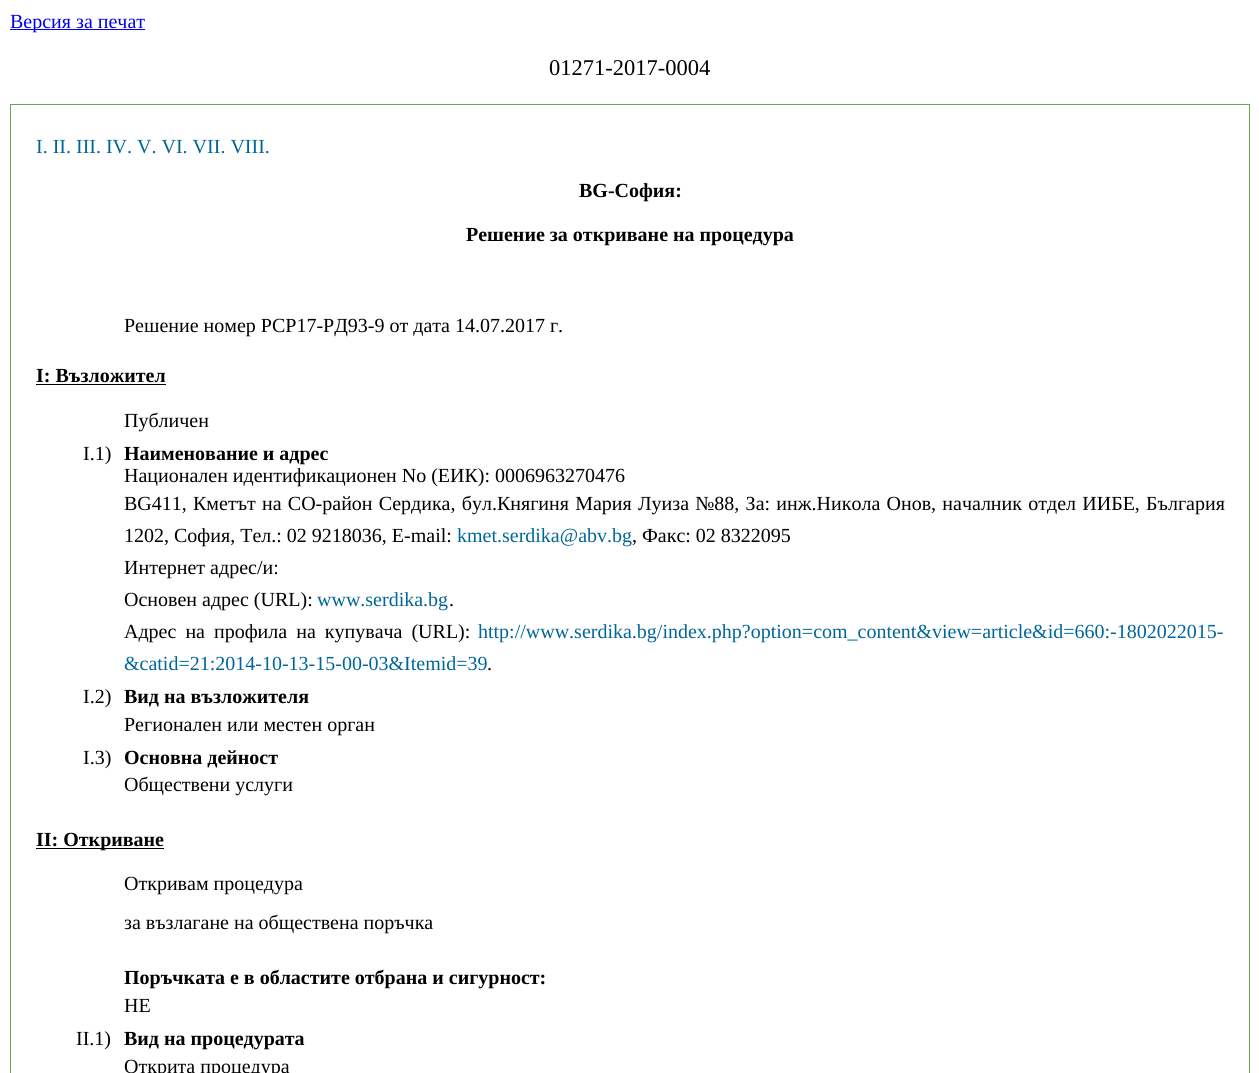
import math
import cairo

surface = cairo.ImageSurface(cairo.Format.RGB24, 1259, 1073)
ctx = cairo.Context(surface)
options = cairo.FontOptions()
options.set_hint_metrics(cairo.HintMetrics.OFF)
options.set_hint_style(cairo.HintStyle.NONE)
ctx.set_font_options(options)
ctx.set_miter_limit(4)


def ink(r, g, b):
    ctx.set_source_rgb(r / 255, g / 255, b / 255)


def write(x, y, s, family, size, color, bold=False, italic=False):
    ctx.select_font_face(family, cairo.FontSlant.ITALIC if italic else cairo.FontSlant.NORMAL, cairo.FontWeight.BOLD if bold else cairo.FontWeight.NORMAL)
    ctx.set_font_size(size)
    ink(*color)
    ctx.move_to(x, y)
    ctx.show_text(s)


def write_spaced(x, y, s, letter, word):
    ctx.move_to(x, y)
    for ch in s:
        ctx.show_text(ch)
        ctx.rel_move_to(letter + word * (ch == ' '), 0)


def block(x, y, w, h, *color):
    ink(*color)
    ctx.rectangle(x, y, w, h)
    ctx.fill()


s1 = dict(family="Liberation Serif", size=20, color=(0, 0, 238))
s2 = dict(family="Liberation Serif", size=22.5, color=(0, 0, 0))
s3 = dict(family="Liberation Serif", size=20, color=(0, 102, 153))
s4 = dict(family="Liberation Serif", size=20, color=(0, 0, 0), bold=True)
s5 = dict(family="Liberation Serif", size=20, color=(0, 0, 0))

ink(255, 255, 255)
ctx.paint()
block(10, 29, 135, 1, 0, 0, 238)
write(10, 28, "Версия за печат", **s1)
write(549, 75, "01271-2017-0004", **s2)
ctx.rectangle(10.5, 104.5, 1239, 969)
ink(103, 166, 79)
ctx.set_line_width(1)
ctx.stroke()
write(36, 153, "I. II. III. IV. V. VI. VII. VIII.", **s3)
write(579, 197, "BG-София:", **s4)
write(466, 241, "Решение за откриване на процедура", **s4)
write(124, 332, "Решение номер РСР17-РД93-9 от дата 14.07.2017 г.", **s5)
write(36, 382, "І: Възложител", **s4)
block(36, 384, 130, 1, 0, 0, 0)
write(124, 427, "Публичен", **s5)
write(83, 460, "I.1)", **s5)
write(124, 460, "Наименование и адрес", **s4)
write(124, 482, "Национален идентификационен No (ЕИК): 0006963270476", **s5)
write_spaced(124, 510, "BG411, Кметът на СО-район Сердика, бул.Княгиня Мария Луиза №88, За: инж.Никола Онов, началник отдел ИИБЕ, България", 0, 1.25)
write(124, 542, "1202, София, Тел.: 02 9218036, E-mail:", **s5)
write(457, 542, "kmet.serdika@abv.bg", **s3)
write(632, 542, ", Факс: 02 8322095", **s5)
write(124, 574, "Интернет адрес/и:", **s5)
write(124, 606, "Основен адрес (URL):", **s5)
write(317, 606, "www.serdika.bg", **s3)
write(449, 606, ".", **s5)
write_spaced(124, 638, "Адрес на профила на купувача (URL):", 0, 4)
write(478, 638, "http://www.serdika.bg/index.php?option=com_content&view=article&id=660:-1802022015-", **s3)
write(124, 670, "&catid=21:2014-10-13-15-00-03&Itemid=39", **s3)
write(487, 670, ".", **s5)
write(83, 703, "I.2)", **s5)
write(124, 703, "Вид на възложителя", **s4)
write(124, 731, "Регионален или местен орган", **s5)
write(83, 764, "I.3)", **s5)
write(124, 764, "Основна дейност", **s4)
write(124, 791, "Обществени услуги", **s5)
block(36, 848, 128, 1, 0, 0, 0)
write(36, 846, "ІI: Откриване", **s4)
write(124, 890, "Откривам процедура", **s5)
write(124, 929, "за възлагане на обществена поръчка", **s5)
write(124, 984, "Поръчката е в областите отбрана и сигурност:", **s4)
write(124, 1012, "НЕ", **s5)
write(76, 1045, "ІI.1)", **s5)
write(124, 1045, "Вид на процедурата", **s4)
write(124, 1073, "Открита процедура", **s5)
surface.write_to_png("screenshot.png")
